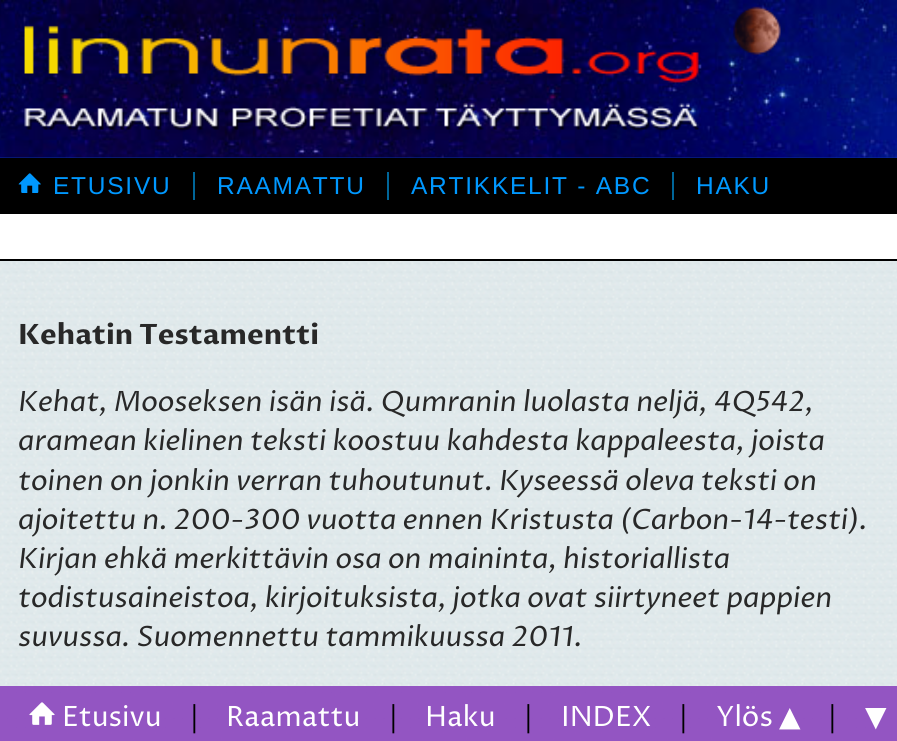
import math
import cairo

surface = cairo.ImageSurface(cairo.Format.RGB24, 897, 741)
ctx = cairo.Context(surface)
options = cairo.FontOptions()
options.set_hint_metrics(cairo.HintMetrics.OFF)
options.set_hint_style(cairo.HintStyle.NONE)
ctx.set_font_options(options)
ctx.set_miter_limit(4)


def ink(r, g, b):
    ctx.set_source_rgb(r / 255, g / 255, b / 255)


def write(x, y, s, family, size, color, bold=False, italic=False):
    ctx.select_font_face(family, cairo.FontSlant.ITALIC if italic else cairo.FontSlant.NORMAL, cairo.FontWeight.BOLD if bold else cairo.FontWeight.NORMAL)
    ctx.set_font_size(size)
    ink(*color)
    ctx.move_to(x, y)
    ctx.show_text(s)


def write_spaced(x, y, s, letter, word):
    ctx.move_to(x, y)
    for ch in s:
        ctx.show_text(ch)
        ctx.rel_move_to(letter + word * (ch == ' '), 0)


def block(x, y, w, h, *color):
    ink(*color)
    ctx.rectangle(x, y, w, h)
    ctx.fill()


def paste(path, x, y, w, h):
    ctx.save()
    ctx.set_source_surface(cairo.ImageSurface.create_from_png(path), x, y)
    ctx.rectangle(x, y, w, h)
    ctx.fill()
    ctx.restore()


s1 = dict(family="Proza Libre", size=28, color=(40, 40, 40), bold=True)
s2 = dict(family="Proza Libre", size=28, color=(40, 40, 40), italic=True)
s3 = dict(family="Proza Libre", size=28, color=(255, 255, 255))
s4 = dict(family="Proza Libre", size=28, color=(0, 0, 0))
s5 = dict(family="DejaVu Sans", size=28, color=(255, 255, 255))

ink(255, 255, 255)
ctx.paint()
paste("pic1.png", 0, 261, 897, 480)
block(0, 157, 897, 1, 10, 47, 161)
paste("pic2.png", 0, 0, 897, 158)
paste("pic3.png", 24, 25, 676, 107)
paste("pic4.png", 733, 6, 48, 49)
block(0, 158, 897, 56, 0, 0, 0)
paste("pic5.png", 18, 173, 23, 20)
ctx.select_font_face("Liberation Sans")
ctx.set_font_size(24.5)
ink(0, 152, 255)
write_spaced(53, 194, "ETUSIVU", 1.75, 0)
block(193, 172, 2, 28, 0, 102, 153)
ink(0, 152, 255)
write_spaced(217, 194, "RAAMATTU", 1.75, 0)
block(387, 172, 2, 28, 0, 102, 153)
ink(0, 152, 255)
write_spaced(411, 194, "ARTIKKELIT - ABC", 1.75, 0)
block(672, 172, 2, 28, 0, 102, 153)
ink(0, 152, 255)
write_spaced(696, 194, "HAKU", 1.75, 0)
block(0, 259, 897, 2, 0, 0, 0)
write(18, 344, "Kehatin Testamentti", **s1)
write(18, 411, "Kehat, Mooseksen isän isä. Qumranin luolasta neljä, 4Q542,", **s2)
write(18, 450, "aramean kielinen teksti koostuu kahdesta kappaleesta, joista", **s2)
write(18, 490, "toinen on jonkin verran tuhoutunut. Kyseessä oleva teksti on", **s2)
write(18, 529, "ajoitettu n. 200-300 vuotta ennen Kristusta (Carbon-14-testi).", **s2)
write(18, 568, "Kirjan ehkä merkittävin osa on maininta, historiallista", **s2)
write(18, 607, "todistusaineistoa, kirjoituksista, jotka ovat siirtyneet pappien", **s2)
write(18, 646, "suvussa. Suomennettu tammikuussa 2011.", **s2)
ctx.set_source_rgba(0.545, 0.271, 0.745, 0.9)
ctx.rectangle(0, 686, 897, 55)
ctx.fill()
paste("pic6.png", 29, 702, 26, 23)
write(62, 726, "Etusivu", **s3)
write(190, 726, "|", **s4)
write(226, 726, "Raamattu", **s3)
write(389, 726, "|", **s4)
write(425, 726, "Haku", **s3)
write(524, 726, "|", **s4)
write(561, 726, "INDEX", **s3)
write(679, 726, "|", **s4)
write(716, 726, "Ylös", **s3)
write(779, 726, "▲", **s5)
write(828, 726, "|", **s4)
write(865, 726, "▼", **s5)
surface.write_to_png("screenshot.png")
